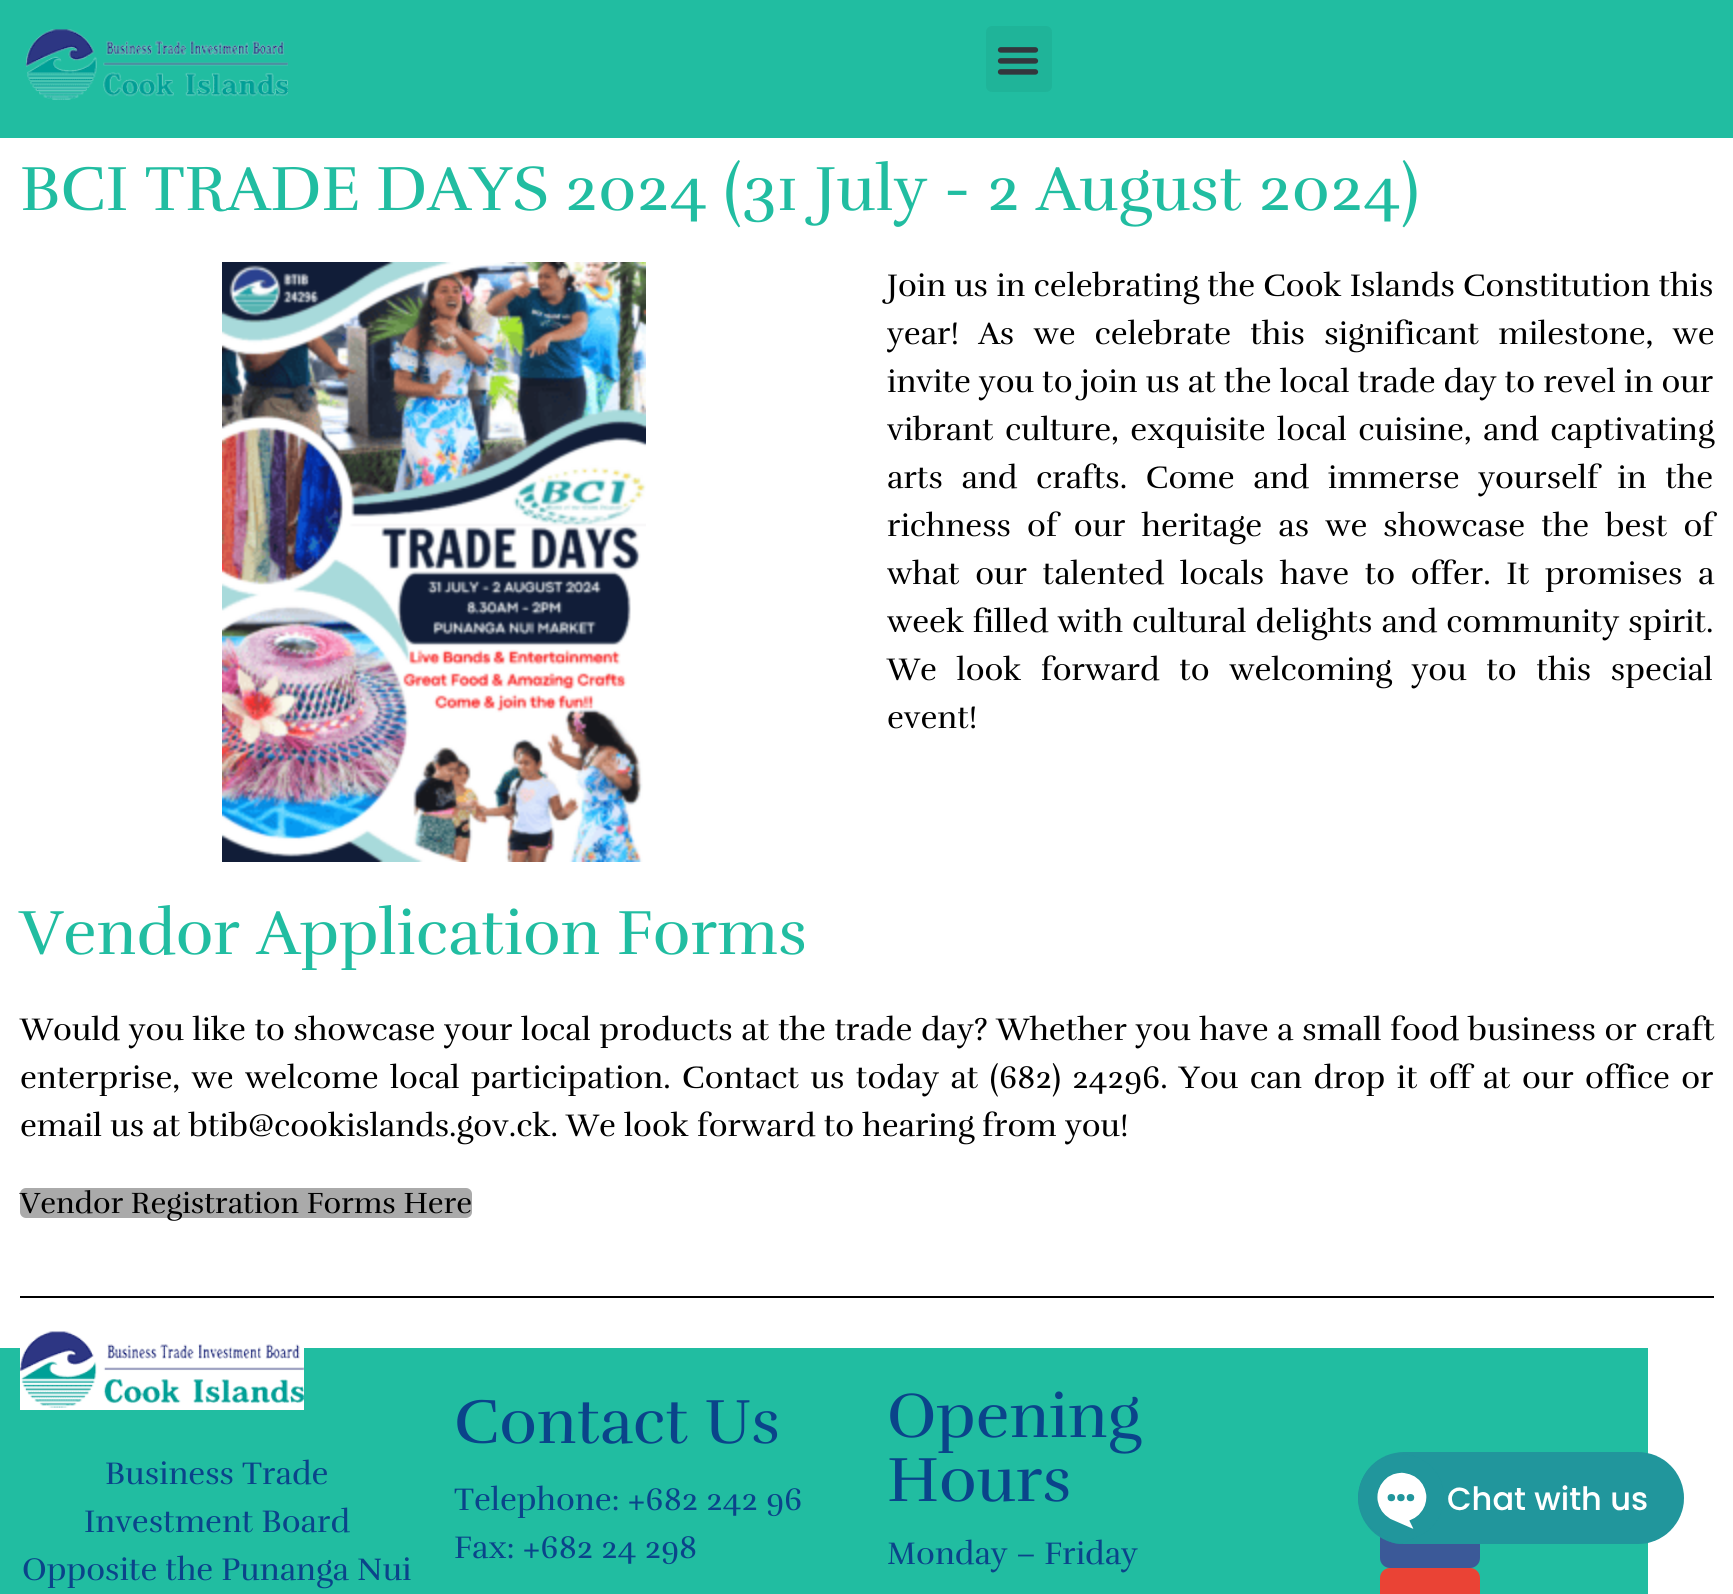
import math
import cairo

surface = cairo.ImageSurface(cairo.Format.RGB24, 1733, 1594)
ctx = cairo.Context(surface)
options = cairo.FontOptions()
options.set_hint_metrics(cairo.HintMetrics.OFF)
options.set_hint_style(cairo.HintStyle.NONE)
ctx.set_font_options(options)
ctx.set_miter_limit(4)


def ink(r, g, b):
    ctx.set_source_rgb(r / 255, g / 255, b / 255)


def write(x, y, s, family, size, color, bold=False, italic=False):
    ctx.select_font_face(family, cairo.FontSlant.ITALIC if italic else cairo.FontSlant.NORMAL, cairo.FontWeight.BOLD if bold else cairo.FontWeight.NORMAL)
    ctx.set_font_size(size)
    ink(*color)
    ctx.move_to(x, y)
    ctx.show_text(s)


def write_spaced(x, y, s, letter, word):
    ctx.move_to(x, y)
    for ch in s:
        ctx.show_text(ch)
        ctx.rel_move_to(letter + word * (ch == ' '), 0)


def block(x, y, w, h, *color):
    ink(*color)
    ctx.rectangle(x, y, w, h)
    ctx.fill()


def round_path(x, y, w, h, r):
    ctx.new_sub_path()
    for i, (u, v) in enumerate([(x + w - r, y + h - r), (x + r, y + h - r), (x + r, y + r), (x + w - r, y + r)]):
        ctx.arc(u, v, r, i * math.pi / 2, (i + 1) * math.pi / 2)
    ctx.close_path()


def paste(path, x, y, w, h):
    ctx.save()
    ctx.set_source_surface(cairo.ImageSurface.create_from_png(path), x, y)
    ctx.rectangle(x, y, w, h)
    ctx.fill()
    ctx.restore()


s1 = dict(family="Rufina", size=64, color=(33, 189, 161))
s2 = dict(family="Rufina", size=32, color=(0, 0, 0))
s3 = dict(family="Rufina", size=30, color=(0, 0, 0))
s4 = dict(family="Rufina", size=32, color=(10, 68, 138))
s5 = dict(family="Rufina", size=64, color=(10, 68, 138))

ink(255, 255, 255)
ctx.paint()
ctx.rectangle(3, 3, 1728, 132)
ink(33, 189, 161)
ctx.set_line_width(6)
ctx.stroke()
block(6, 6, 1722, 126, 33, 189, 161)
paste("pic1.png", 26, 29, 262, 71)
ink(31, 180, 153)
round_path(986, 26, 66, 66, 6)
ctx.fill()
paste("pic2.png", 997, 47, 42, 28)
write(20, 210, "BCI TRADE DAYS 2024 (31 July - 2 August 2024)", **s1)
paste("pic3.png", 222, 262, 424, 600)
write(887, 296, "Join us in celebrating the Cook Islands Constitution this", **s2)
write_spaced(887, 344, "year! As we celebrate this significant milestone, we", 0, 11)
write(887, 392, "invite you to join us at the local trade day to revel in our", **s2)
write_spaced(887, 440, "vibrant culture, exquisite local cuisine, and captivating", 0, 3.25)
write_spaced(887, 488, "arts and crafts. Come and immerse yourself in the", 0, 10.5)
write_spaced(887, 536, "richness of our heritage as we showcase the best of", 0, 8)
write_spaced(887, 584, "what our talented locals have to offer. It promises a", 0, 7.5)
write_spaced(887, 632, "week filled with cultural delights and community spirit.", 0, 0.75)
write_spaced(887, 680, "We look forward to welcoming you to this special", 0, 11.5)
write(887, 728, "event!", **s2)
write(20, 954, "Vendor Application Forms", **s1)
ctx.set_font_size(32)
ink(0, 0, 0)
write_spaced(20, 1040, "Would you like to showcase your local products at the trade day? Whether you have a small food business or craft", 0, 0.5)
write_spaced(20, 1088, "enterprise, we welcome local participation. Contact us today at (682) 24296. You can drop it off at our office or", 0, 3.25)
write(20, 1136, "email us at btib@cookislands.gov.ck. We look forward to hearing from you!", **s2)
ink(170, 170, 170)
round_path(20, 1188, 452, 30, 6)
ctx.fill()
write(20, 1213, "Vendor Registration Forms Here", **s3)
block(20, 1296, 1694, 2, 0, 0, 0)
block(0, 1348, 1648, 246, 33, 189, 161)
block(20, 1348, 284, 62, 255, 255, 255)
paste("pic4.png", 20, 1331, 284, 77)
write(105, 1484, "Business Trade", **s4)
write(84, 1532, "Investment Board", **s4)
write(22, 1580, "Opposite the Punanga Nui", **s4)
write(454, 1443, "Contact Us", **s5)
write(454, 1510, "Telephone: +682 242 96", **s4)
write(454, 1558, "Fax: +682 24 298", **s4)
write(887, 1437, "Opening", **s5)
write(887, 1501, "Hours", **s5)
write(887, 1564, "Monday – Friday", **s4)
ink(59, 89, 152)
round_path(1380, 1468, 100, 100, 10)
ctx.fill()
ink(234, 67, 53)
round_path(1380, 1568, 100, 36, 10)
ctx.fill()
paste("pic5.png", 1358, 1452, 326, 92)
surface.write_to_png("screenshot.png")
